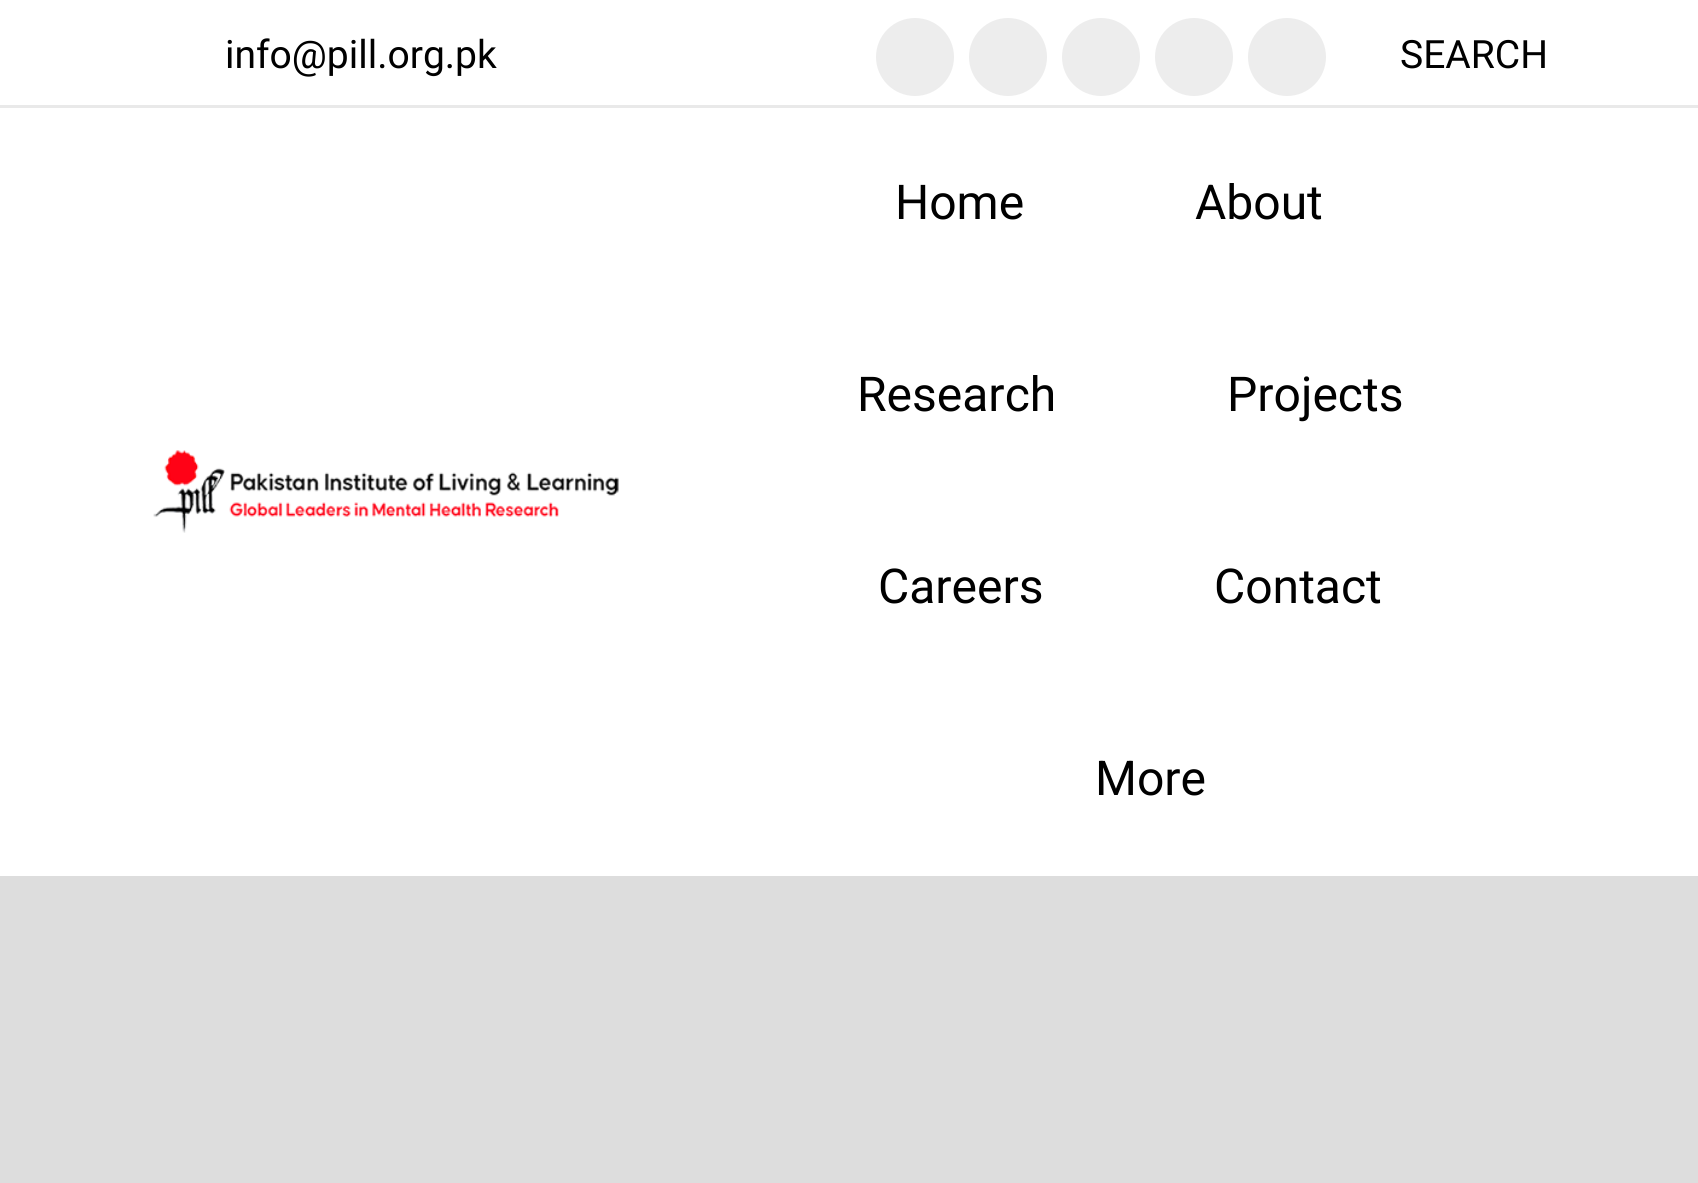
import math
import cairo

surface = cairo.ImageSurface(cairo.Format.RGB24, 1698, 1183)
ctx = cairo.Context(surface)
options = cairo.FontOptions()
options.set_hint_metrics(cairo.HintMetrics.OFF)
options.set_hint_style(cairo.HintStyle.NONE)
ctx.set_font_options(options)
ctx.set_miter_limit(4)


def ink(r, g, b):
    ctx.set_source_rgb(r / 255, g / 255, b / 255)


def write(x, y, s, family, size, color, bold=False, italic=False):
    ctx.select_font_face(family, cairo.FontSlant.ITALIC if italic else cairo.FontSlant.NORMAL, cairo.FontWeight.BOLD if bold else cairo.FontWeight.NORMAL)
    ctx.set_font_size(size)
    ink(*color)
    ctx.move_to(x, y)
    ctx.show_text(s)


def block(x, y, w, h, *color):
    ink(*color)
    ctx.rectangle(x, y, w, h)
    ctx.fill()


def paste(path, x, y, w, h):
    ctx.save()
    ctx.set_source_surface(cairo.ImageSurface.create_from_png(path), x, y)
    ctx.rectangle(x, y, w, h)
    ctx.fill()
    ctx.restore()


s1 = dict(family="Roboto", size=39, color=(0, 0, 0))
s2 = dict(family="Roboto", size=48, color=(0, 0, 0))

ink(255, 255, 255)
ctx.paint()
write(225, 68, "info@pill.org.pk", **s1)
ink(237, 237, 237)
ctx.new_path()
ctx.arc(915, 57, 39, 0, 2 * math.pi)
ctx.fill()
ctx.arc(1008, 57, 39, 0, 2 * math.pi)
ctx.fill()
ctx.arc(1101, 57, 39, 0, 2 * math.pi)
ctx.fill()
ctx.arc(1194, 57, 39, 0, 2 * math.pi)
ctx.fill()
ctx.arc(1287, 57, 39, 0, 2 * math.pi)
ctx.fill()
write(1400, 68, "SEARCH", **s1)
block(0, 105, 1698, 3, 233, 233, 233)
paste("pic1.png", 153, 450, 466, 83)
write(895, 219, "Home", **s2)
write(1195, 219, "About", **s2)
write(857, 411, "Research", **s2)
write(1227, 411, "Projects", **s2)
write(878, 603, "Careers", **s2)
write(1214, 603, "Contact", **s2)
write(1095, 795, "More", **s2)
block(0, 876, 1698, 307, 221, 221, 221)
surface.write_to_png("screenshot.png")
